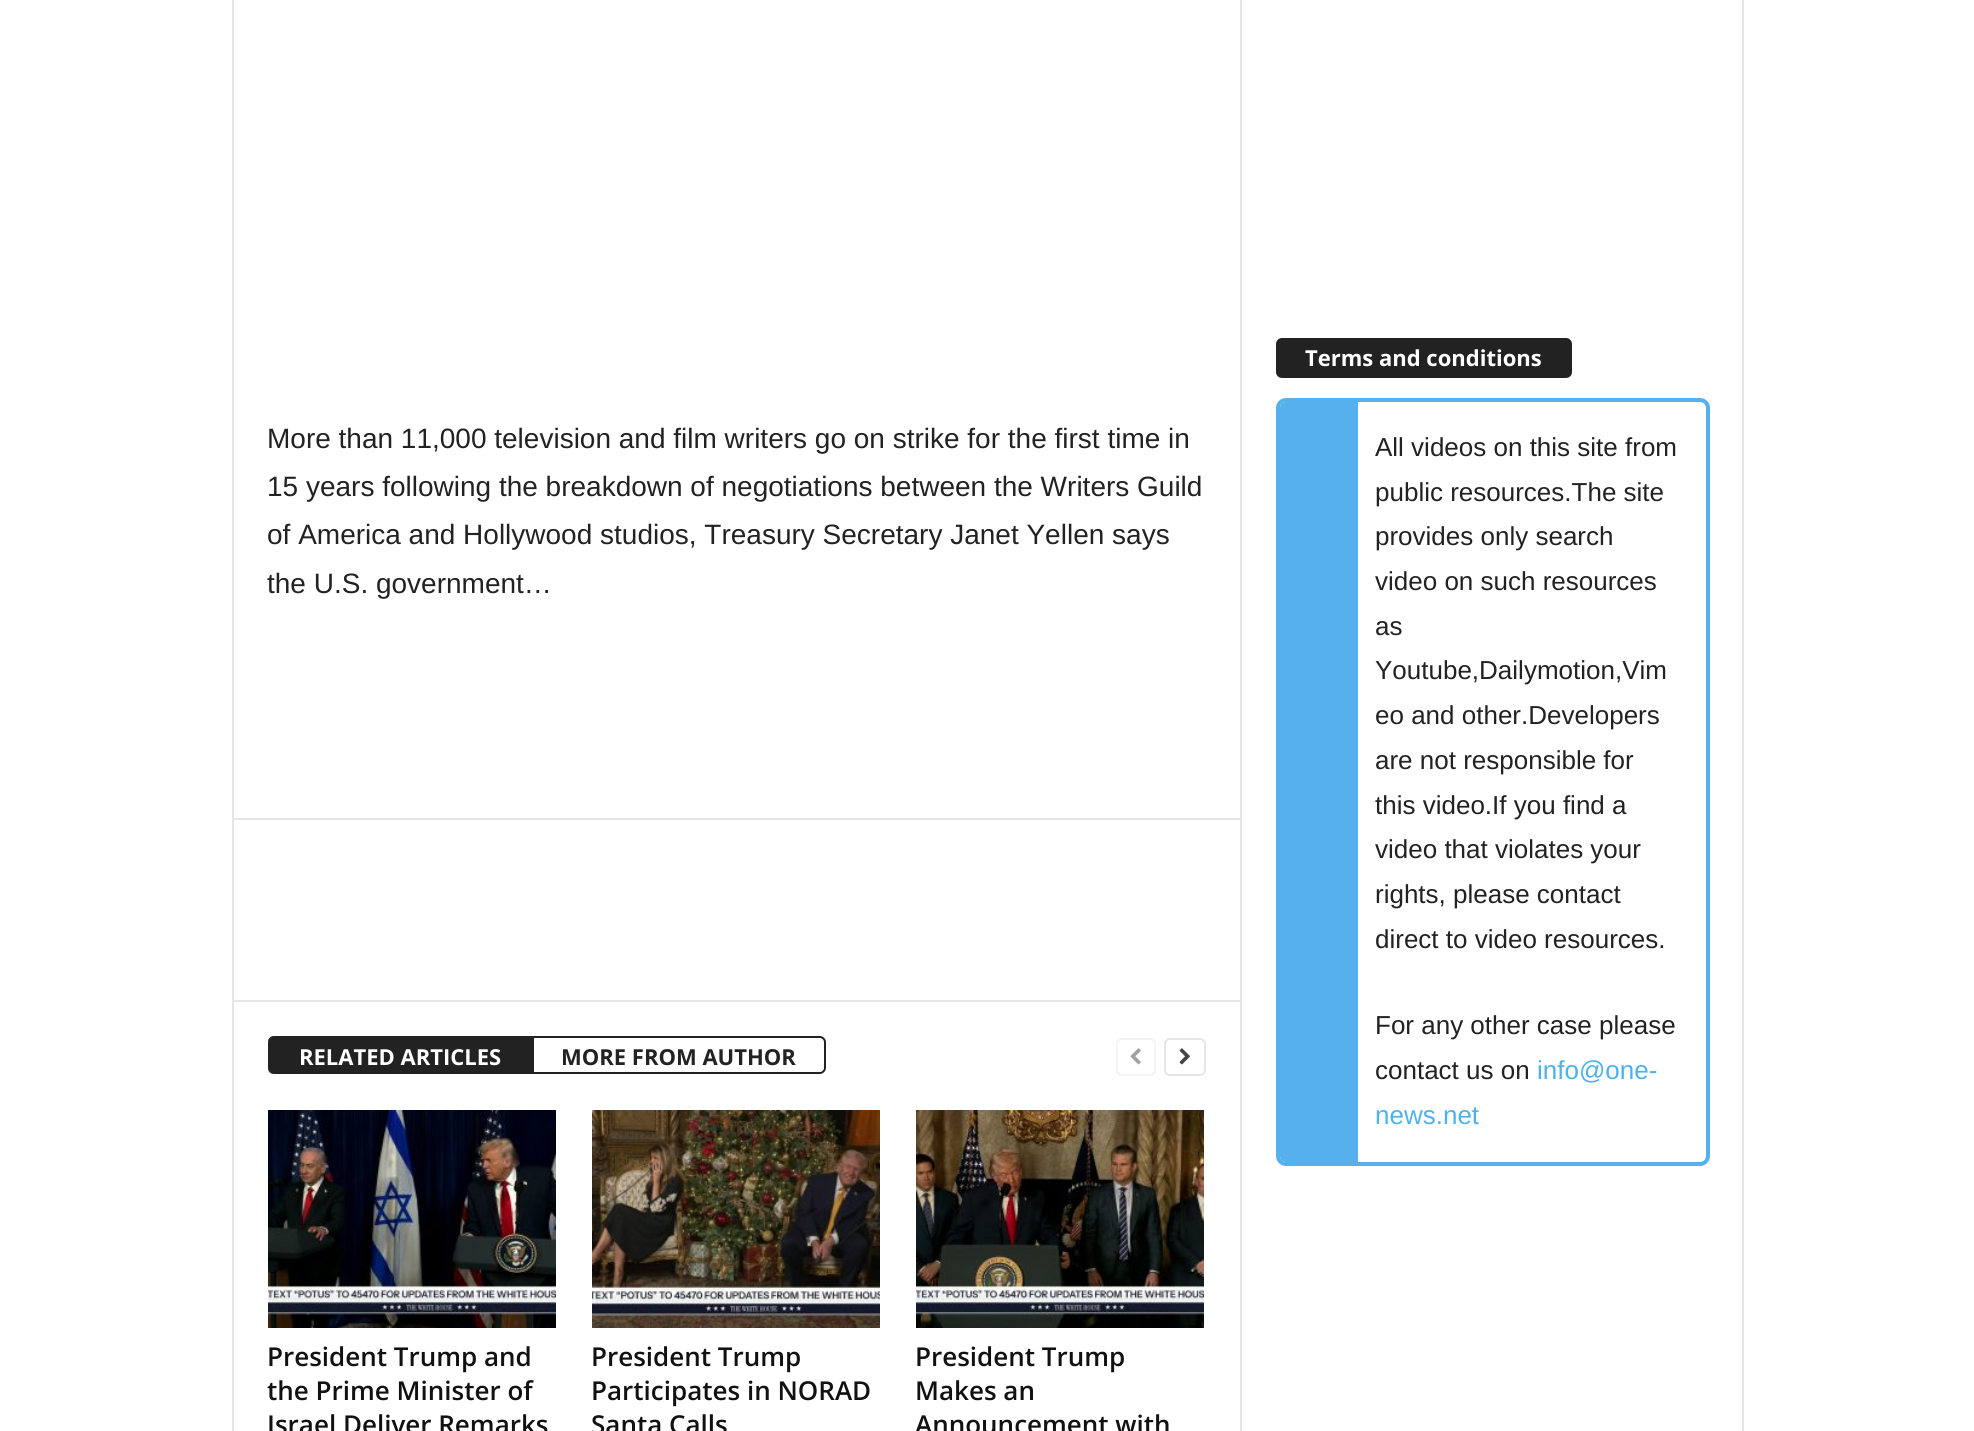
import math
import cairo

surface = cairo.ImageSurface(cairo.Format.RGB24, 1974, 1431)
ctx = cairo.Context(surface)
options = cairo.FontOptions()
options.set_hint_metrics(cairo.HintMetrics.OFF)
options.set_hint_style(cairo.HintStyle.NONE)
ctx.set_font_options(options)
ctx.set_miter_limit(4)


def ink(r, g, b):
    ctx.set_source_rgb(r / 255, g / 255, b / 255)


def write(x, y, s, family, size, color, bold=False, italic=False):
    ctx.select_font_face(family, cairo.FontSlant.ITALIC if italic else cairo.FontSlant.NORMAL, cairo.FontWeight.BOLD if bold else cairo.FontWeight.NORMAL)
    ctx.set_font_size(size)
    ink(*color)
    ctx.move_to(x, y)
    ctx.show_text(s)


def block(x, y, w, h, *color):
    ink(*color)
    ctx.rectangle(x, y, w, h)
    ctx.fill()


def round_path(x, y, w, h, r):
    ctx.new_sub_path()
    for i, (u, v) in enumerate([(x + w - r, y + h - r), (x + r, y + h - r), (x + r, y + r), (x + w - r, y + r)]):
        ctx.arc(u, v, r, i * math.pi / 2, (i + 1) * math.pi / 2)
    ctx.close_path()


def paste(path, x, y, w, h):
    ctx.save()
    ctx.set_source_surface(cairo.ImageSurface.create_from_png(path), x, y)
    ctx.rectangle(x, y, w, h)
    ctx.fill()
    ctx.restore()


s1 = dict(family="Liberation Sans", size=28, color=(34, 34, 34))
s2 = dict(family="Open Sans", size=22, color=(255, 255, 255), bold=True)
s3 = dict(family="Open Sans", size=22, color=(34, 34, 34), bold=True)
s4 = dict(family="Open Sans SemiBold", size=26, color=(17, 17, 17))
s5 = dict(family="Liberation Sans", size=26, color=(34, 34, 34))
s6 = dict(family="Liberation Sans", size=26, color=(77, 178, 236))

ink(255, 255, 255)
ctx.paint()
block(232, 0, 2, 1431, 230, 230, 230)
write(267, 448, "More than 11,000 television and film writers go on strike for the first time in", **s1)
write(267, 496, "15 years following the breakdown of negotiations between the Writers Guild", **s1)
write(267, 544, "of America and Hollywood studios, Treasury Secretary Janet Yellen says", **s1)
write(267, 593, "the U.S. government…", **s1)
block(234, 818, 1006, 2, 230, 230, 230)
block(234, 1000, 1006, 2, 230, 230, 230)
ink(34, 34, 34)
ctx.new_path()
ctx.move_to(274, 1037)
ctx.line_to(533, 1037)
ctx.line_to(533, 1073)
ctx.line_to(274, 1073)
ctx.curve_to(271, 1073, 269, 1071, 269, 1068)
ctx.line_to(269, 1042)
ctx.curve_to(269, 1039, 271, 1037, 274, 1037)
ctx.close_path()
ctx.fill_preserve()
ctx.stroke()
write(299, 1065, "RELATED ARTICLES", **s2)
ink(34, 34, 34)
ctx.set_fill_rule(cairo.FillRule.EVEN_ODD)
ctx.new_path()
ctx.move_to(534, 1036)
ctx.line_to(820, 1036)
ctx.curve_to(823, 1036, 826, 1039, 826, 1042)
ctx.line_to(826, 1068)
ctx.curve_to(826, 1071, 823, 1074, 820, 1074)
ctx.line_to(534, 1074)
ctx.close_path()
ctx.move_to(534, 1038)
ctx.line_to(820, 1038)
ctx.curve_to(822, 1038, 824, 1040, 824, 1042)
ctx.line_to(824, 1068)
ctx.curve_to(824, 1070, 822, 1072, 820, 1072)
ctx.line_to(534, 1072)
ctx.close_path()
ctx.fill()
write(561, 1065, "MORE FROM AUTHOR", **s3)
round_path(1117, 1039, 38, 36, 5)
ink(243, 243, 243)
ctx.stroke()
paste("pic1.png", 1130, 1048, 11, 17)
round_path(1165, 1039, 40, 36, 5)
ink(230, 230, 230)
ctx.stroke()
paste("pic2.png", 1179, 1048, 11, 17)
paste("pic3.png", 268, 1110, 288, 218)
write(267, 1366, "President Trump and", **s4)
write(267, 1400, "the Prime Minister of", **s4)
write(267, 1434, "Israel Deliver Remarks", **s4)
paste("pic4.png", 592, 1110, 288, 218)
write(591, 1366, "President Trump", **s4)
write(591, 1400, "Participates in NORAD", **s4)
write(591, 1434, "Santa Calls", **s4)
paste("pic5.png", 916, 1110, 288, 218)
write(915, 1366, "President Trump", **s4)
write(915, 1400, "Makes an", **s4)
write(915, 1434, "Announcement with", **s4)
block(1240, 0, 2, 1431, 230, 230, 230)
ink(34, 34, 34)
round_path(1276, 338, 296, 40, 6)
ctx.fill()
write(1305, 366, "Terms and conditions", **s2)
round_path(1278, 400, 430, 764, 8)
ink(86, 176, 238)
ctx.set_line_width(4)
ctx.stroke()
ctx.new_path()
ctx.move_to(1286, 402)
ctx.line_to(1358, 402)
ctx.line_to(1358, 1162)
ctx.line_to(1286, 1162)
ctx.curve_to(1282.5, 1162, 1280, 1159.5, 1280, 1156)
ctx.line_to(1280, 408)
ctx.curve_to(1280, 404.5, 1282.5, 402, 1286, 402)
ctx.close_path()
ctx.fill()
write(1375, 456, "All videos on this site from", **s5)
write(1375, 501, "public resources.The site", **s5)
write(1375, 545, "provides only search", **s5)
write(1375, 590, "video on such resources", **s5)
write(1375, 635, "as", **s5)
write(1375, 679, "Youtube,Dailymotion,Vim", **s5)
write(1375, 724, "eo and other.Developers", **s5)
write(1375, 769, "are not responsible for", **s5)
write(1375, 814, "this video.If you find a", **s5)
write(1375, 858, "video that violates your", **s5)
write(1375, 903, "rights, please contact", **s5)
write(1375, 948, "direct to video resources.", **s5)
write(1375, 1034, "For any other case please", **s5)
write(1375, 1079, "contact us on", **s5)
write(1537, 1079, "info@one-", **s6)
write(1375, 1124, "news.net", **s6)
block(1742, 0, 2, 1431, 230, 230, 230)
surface.write_to_png("screenshot.png")
